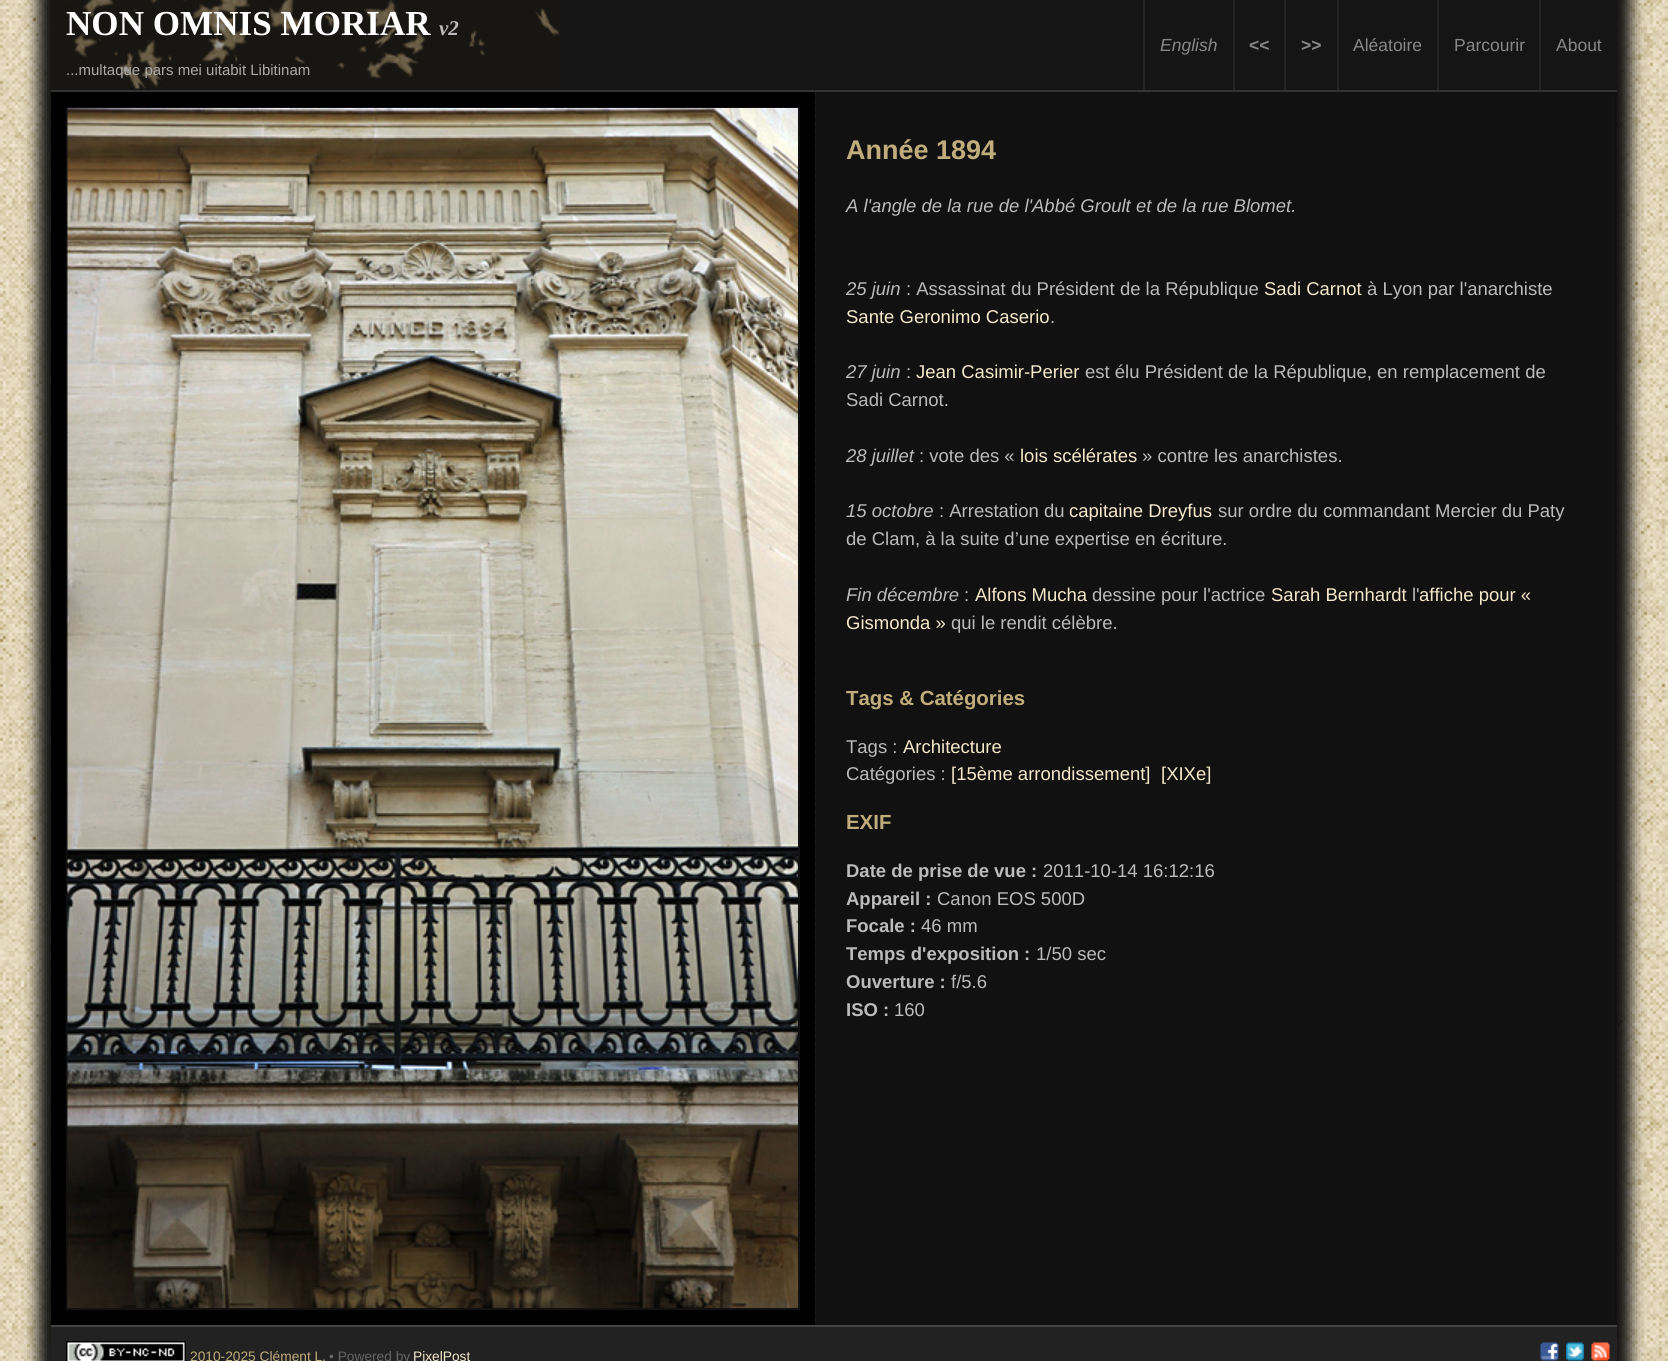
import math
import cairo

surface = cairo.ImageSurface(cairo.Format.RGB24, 1668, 1361)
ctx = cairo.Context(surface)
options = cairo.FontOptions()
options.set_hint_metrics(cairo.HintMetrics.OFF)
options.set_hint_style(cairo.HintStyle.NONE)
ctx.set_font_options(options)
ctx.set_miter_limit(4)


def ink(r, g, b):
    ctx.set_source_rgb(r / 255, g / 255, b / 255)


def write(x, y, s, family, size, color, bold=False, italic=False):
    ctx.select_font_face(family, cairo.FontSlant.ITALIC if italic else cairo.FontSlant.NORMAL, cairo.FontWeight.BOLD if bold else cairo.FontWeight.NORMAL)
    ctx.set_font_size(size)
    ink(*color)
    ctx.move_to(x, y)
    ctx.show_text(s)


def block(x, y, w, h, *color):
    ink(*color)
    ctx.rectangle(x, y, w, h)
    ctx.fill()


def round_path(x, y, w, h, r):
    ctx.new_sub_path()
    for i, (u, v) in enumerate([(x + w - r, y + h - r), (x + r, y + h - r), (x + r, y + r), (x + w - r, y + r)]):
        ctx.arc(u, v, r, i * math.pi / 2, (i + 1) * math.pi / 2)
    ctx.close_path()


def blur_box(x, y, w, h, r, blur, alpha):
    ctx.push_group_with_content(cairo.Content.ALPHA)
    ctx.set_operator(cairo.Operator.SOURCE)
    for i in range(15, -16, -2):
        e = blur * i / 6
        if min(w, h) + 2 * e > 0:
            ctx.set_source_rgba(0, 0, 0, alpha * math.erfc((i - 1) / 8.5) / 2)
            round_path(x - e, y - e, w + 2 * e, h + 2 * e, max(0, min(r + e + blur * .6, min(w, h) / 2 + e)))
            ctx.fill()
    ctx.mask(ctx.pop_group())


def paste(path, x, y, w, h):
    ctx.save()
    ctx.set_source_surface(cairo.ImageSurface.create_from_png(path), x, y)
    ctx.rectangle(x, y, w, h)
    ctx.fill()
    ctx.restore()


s1 = dict(family="Liberation Serif", size=35.1, color=(255, 255, 255), bold=True)
s2 = dict(family="Liberation Serif", size=21, color=(187, 187, 187), bold=True, italic=True)
s3 = dict(family="Liberation Sans", size=15, color=(170, 170, 170))
s4 = dict(family="Liberation Sans", size=17.5, color=(136, 136, 136), italic=True)
s5 = dict(family="Liberation Sans", size=17.5, color=(136, 136, 136), bold=True)
s6 = dict(family="Liberation Sans", size=17.5, color=(136, 136, 136))
s7 = dict(family="Liberation Sans", size=27, color=(192, 173, 123), bold=True)
s8 = dict(family="Liberation Sans", size=18.5, color=(187, 187, 187), italic=True)
s9 = dict(family="Liberation Sans", size=18.5, color=(187, 187, 187))
s10 = dict(family="Liberation Sans", size=18.5, color=(245, 232, 203))
s11 = dict(family="Liberation Sans", size=20.4, color=(192, 173, 123), bold=True)
s12 = dict(family="Liberation Sans", size=18.5, color=(187, 187, 187), bold=True)
s13 = dict(family="Liberation Sans", size=13.75, color=(192, 173, 123))
s14 = dict(family="Liberation Sans", size=13.75, color=(102, 102, 102))
s15 = dict(family="Liberation Sans", size=13.75, color=(245, 232, 203))

ink(255, 255, 255)
ctx.paint()
paste("pic1.png", 0, 0, 1668, 1361)
ink(17, 17, 17)
blur_box(38, -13, 1593, 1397, 0, 7.5, 1)
block(51, 0, 1566, 90, 21, 21, 21)
paste("pic2.png", 51, 0, 509, 89)
block(51, 90, 1566, 2, 51, 51, 51)
write(66, 35, "NON OMNIS MORIAR", **s1)
write(439, 35, "v2", **s2)
write(66, 75, "...multaque pars mei uitabit Libitinam", **s3)
block(1143, 0, 2, 90, 37, 37, 37)
write(1160, 51, "English", **s4)
block(1233, 0, 2, 90, 37, 37, 37)
write(1249, 51, "<<", **s5)
block(1284, 0, 2, 90, 37, 37, 37)
write(1301, 51, ">>", **s5)
block(1337, 0, 2, 90, 37, 37, 37)
write(1353, 51, "Aléatoire", **s6)
block(1437, 0, 2, 90, 37, 37, 37)
write(1454, 51, "Parcourir", **s6)
block(1539, 0, 2, 90, 37, 37, 37)
write(1556, 51, "About", **s6)
ctx.new_path()
ctx.move_to(815, 91.5)
ctx.line_to(815, 1324.5)
ink(34, 34, 34)
ctx.set_line_width(1.5)
ctx.set_dash([4.5, 2.98])
ctx.stroke()
block(51, 92, 764, 1233, 0, 0, 0)
ctx.rectangle(67, 108, 732, 1201)
ink(17, 17, 17)
ctx.set_line_width(2)
ctx.set_dash([])
ctx.stroke()
paste("pic3.png", 67, 108, 731, 1200)
block(1614, 92, 3, 1233, 17, 17, 17)
write(846, 159, "Année 1894", **s7)
write(846, 212, "A l'angle de la rue de l'Abbé Groult et de la rue Blomet.", **s8)
write(846, 295, "25 juin", **s8)
write(906, 295, ": Assassinat du Président de la République", **s9)
write(1264, 295, "Sadi Carnot", **s10)
write(1367, 295, "à Lyon par l'anarchiste", **s9)
write(846, 323, "Sante Geronimo Caserio", **s10)
write(1050, 323, ".", **s9)
write(846, 378, "27 juin", **s8)
write(906, 378, ":", **s9)
write(916, 378, "Jean Casimir-Perier", **s10)
write(1085, 378, "est élu Président de la République, en remplacement de", **s9)
write(846, 406, "Sadi Carnot.", **s9)
write(846, 462, "28 juillet", **s8)
write(919, 462, ": vote des «", **s9)
write(1020, 462, "lois scélérates", **s10)
write(1142, 462, "» contre les anarchistes.", **s9)
write(846, 517, "15 octobre", **s8)
write(939, 517, ": Arrestation du", **s9)
write(1069, 517, "capitaine Dreyfus", **s10)
write(1218, 517, "sur ordre du commandant Mercier du Paty", **s9)
write(846, 545, "de Clam, à la suite d’une expertise en écriture.", **s9)
write(846, 601, "Fin décembre", **s8)
write(964, 601, ":", **s9)
write(975, 601, "Alfons Mucha", **s10)
write(1092, 601, "dessine pour l'actrice", **s9)
write(1271, 601, "Sarah Bernhardt", **s10)
write(1412, 601, "l'", **s9)
write(1419, 601, "affiche pour «", **s10)
write(846, 629, "Gismonda »", **s10)
write(951, 629, "qui le rendit célèbre.", **s9)
write(846, 705, "Tags & Catégories", **s11)
write(846, 753, "Tags :", **s9)
write(903, 753, "Architecture", **s10)
write(846, 780, "Catégories :", **s9)
write(951, 780, "[15ème arrondissement]", **s10)
write(1161, 780, "[XIXe]", **s10)
write(846, 829, "EXIF", **s11)
write(846, 877, "Date de prise de vue :", **s12)
write(1043, 877, "2011-10-14 16:12:16", **s9)
write(846, 905, "Appareil :", **s12)
write(937, 905, "Canon EOS 500D", **s9)
write(846, 932, "Focale :", **s12)
write(921, 932, "46 mm", **s9)
write(846, 960, "Temps d'exposition :", **s12)
write(1036, 960, "1/50 sec", **s9)
write(846, 988, "Ouverture :", **s12)
write(951, 988, "f/5.6", **s9)
write(846, 1016, "ISO :", **s12)
write(894, 1016, "160", **s9)
block(51, 1327, 1566, 34, 34, 34, 34)
block(51, 1325, 1566, 2, 68, 68, 68)
paste("pic4.png", 66, 1341, 120, 20)
write(190, 1361, "2010-2025 Clément L.", **s13)
write(329, 1361, "• Powered by", **s14)
write(413, 1361, "PixelPost", **s15)
paste("pic5.png", 1540, 1342, 19, 19)
paste("pic6.png", 1566, 1342, 18, 19)
paste("pic7.png", 1591, 1342, 19, 19)
surface.write_to_png("screenshot.png")
